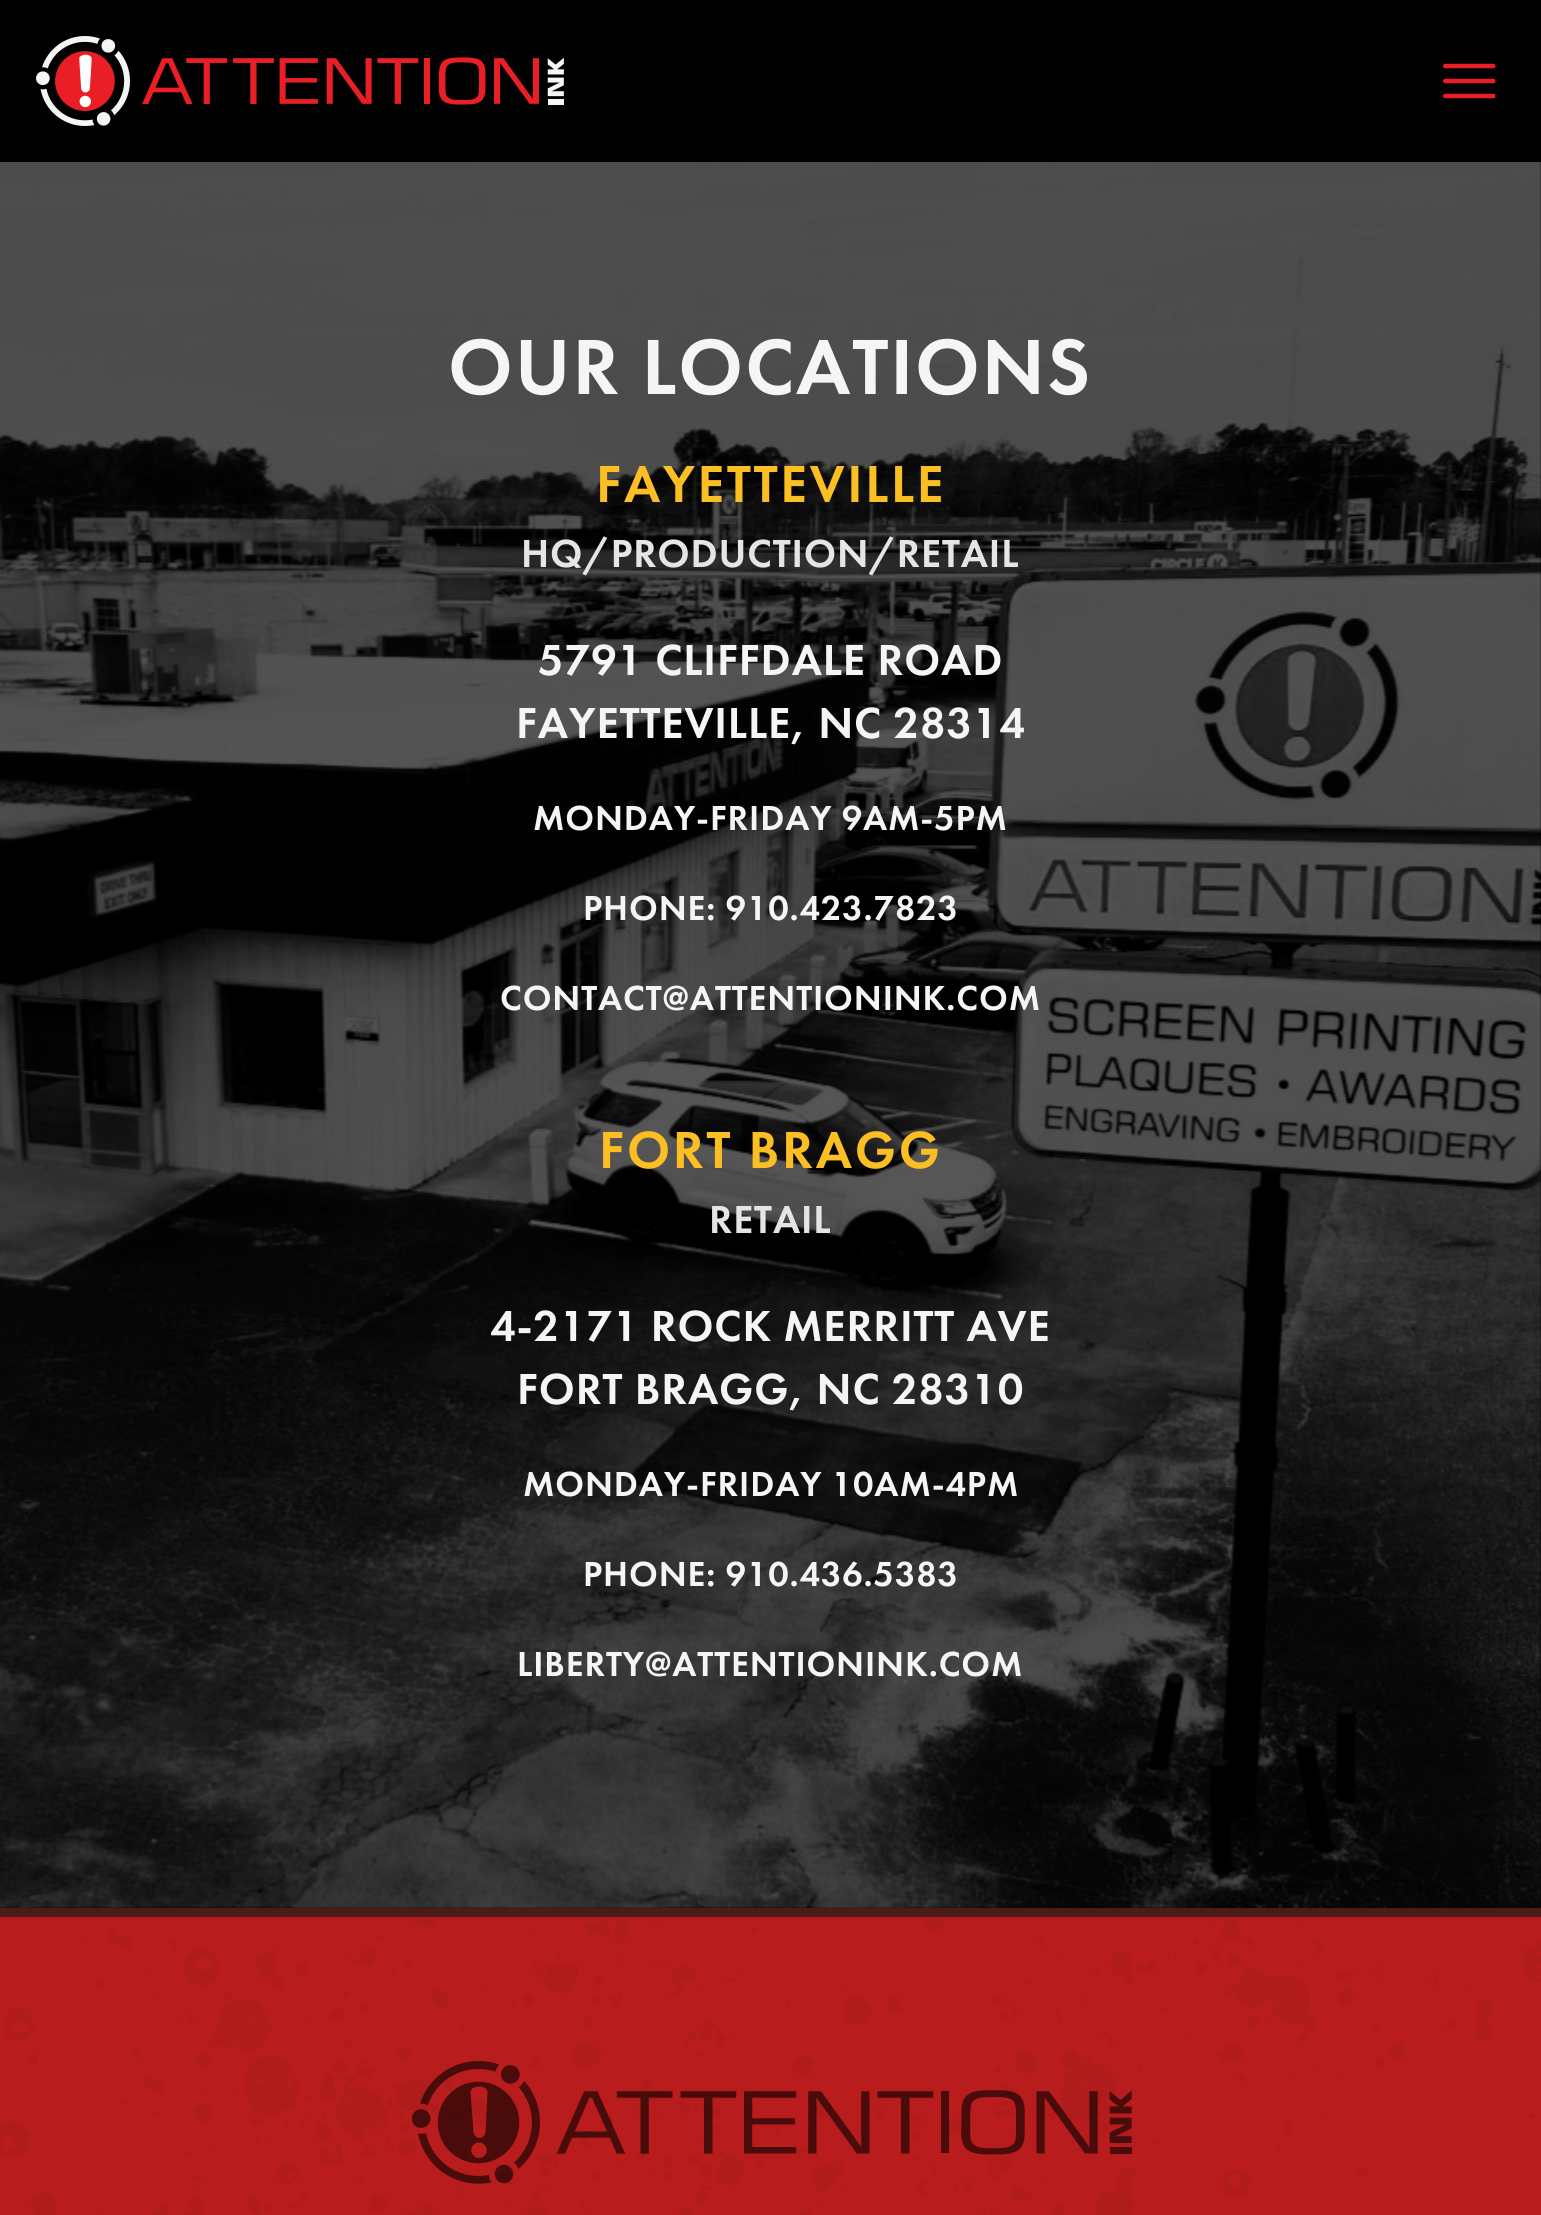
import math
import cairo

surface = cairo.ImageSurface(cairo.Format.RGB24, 1541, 2215)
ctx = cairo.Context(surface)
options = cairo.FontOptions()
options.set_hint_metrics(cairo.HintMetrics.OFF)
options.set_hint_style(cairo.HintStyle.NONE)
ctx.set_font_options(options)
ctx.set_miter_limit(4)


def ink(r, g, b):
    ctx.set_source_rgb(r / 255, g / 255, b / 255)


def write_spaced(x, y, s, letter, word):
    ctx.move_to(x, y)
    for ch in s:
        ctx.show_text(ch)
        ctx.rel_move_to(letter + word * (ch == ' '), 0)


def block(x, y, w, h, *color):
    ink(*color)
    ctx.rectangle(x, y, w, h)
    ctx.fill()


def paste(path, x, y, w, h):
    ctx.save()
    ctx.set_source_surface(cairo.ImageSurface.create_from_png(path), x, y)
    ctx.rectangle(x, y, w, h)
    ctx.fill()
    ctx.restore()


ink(0, 0, 0)
ctx.paint()
paste("pic1.png", 36, 36, 528, 90)
paste("pic2.png", 1443, 63, 53, 36)
paste("pic3.png", 0, 162, 1541, 1746)
ctx.select_font_face("Futura PT Medium")
ctx.set_font_size(81)
ink(245, 245, 244)
write_spaced(448, 394, "OUR LOCATIONS", 2, 0)
ctx.set_font_size(54)
ink(251, 191, 36)
write_spaced(596, 502, "FAYETTEVILLE", 2.75, 0)
ctx.set_font_size(40.5)
ink(231, 229, 228)
write_spaced(521, 567, "HQ/PRODUCTION/RETAIL", 0.9, 0)
ctx.set_font_size(45)
ink(245, 245, 244)
write_spaced(538, 675, "5791 CLIFFDALE ROAD", 0.9, 0)
write_spaced(516, 738, "FAYETTEVILLE, NC 28314", 0.9, 0)
ctx.set_font_size(36)
write_spaced(533, 830, "MONDAY-FRIDAY 9AM-5PM", 0.9, 0)
write_spaced(583, 920, "PHONE: 910.423.7823", 0.9, 0)
write_spaced(500, 1010, "CONTACT@ATTENTIONINK.COM", 0.9, 0)
ctx.set_font_size(54)
ink(251, 191, 36)
write_spaced(599, 1168, "FORT BRAGG", 2.75, 0)
ctx.set_font_size(40.5)
ink(231, 229, 228)
write_spaced(709, 1233, "RETAIL", 0.9, 0)
ctx.set_font_size(45)
ink(245, 245, 244)
write_spaced(490, 1341, "4-2171 ROCK MERRITT AVE", 0.9, 0)
write_spaced(517, 1404, "FORT BRAGG, NC 28310", 0.9, 0)
ctx.set_font_size(36)
write_spaced(523, 1496, "MONDAY-FRIDAY 10AM-4PM", 0.9, 0)
write_spaced(583, 1586, "PHONE: 910.436.5383", 0.9, 0)
write_spaced(517, 1676, "LIBERTY@ATTENTIONINK.COM", 0.9, 0)
block(0, 1917, 1541, 298, 185, 28, 28)
block(0, 1908, 1541, 9, 75, 26, 25)
paste("pic4.png", 0, 1917, 1541, 298)
paste("pic5.png", 412, 2061, 720, 123)
surface.write_to_png("screenshot.png")
